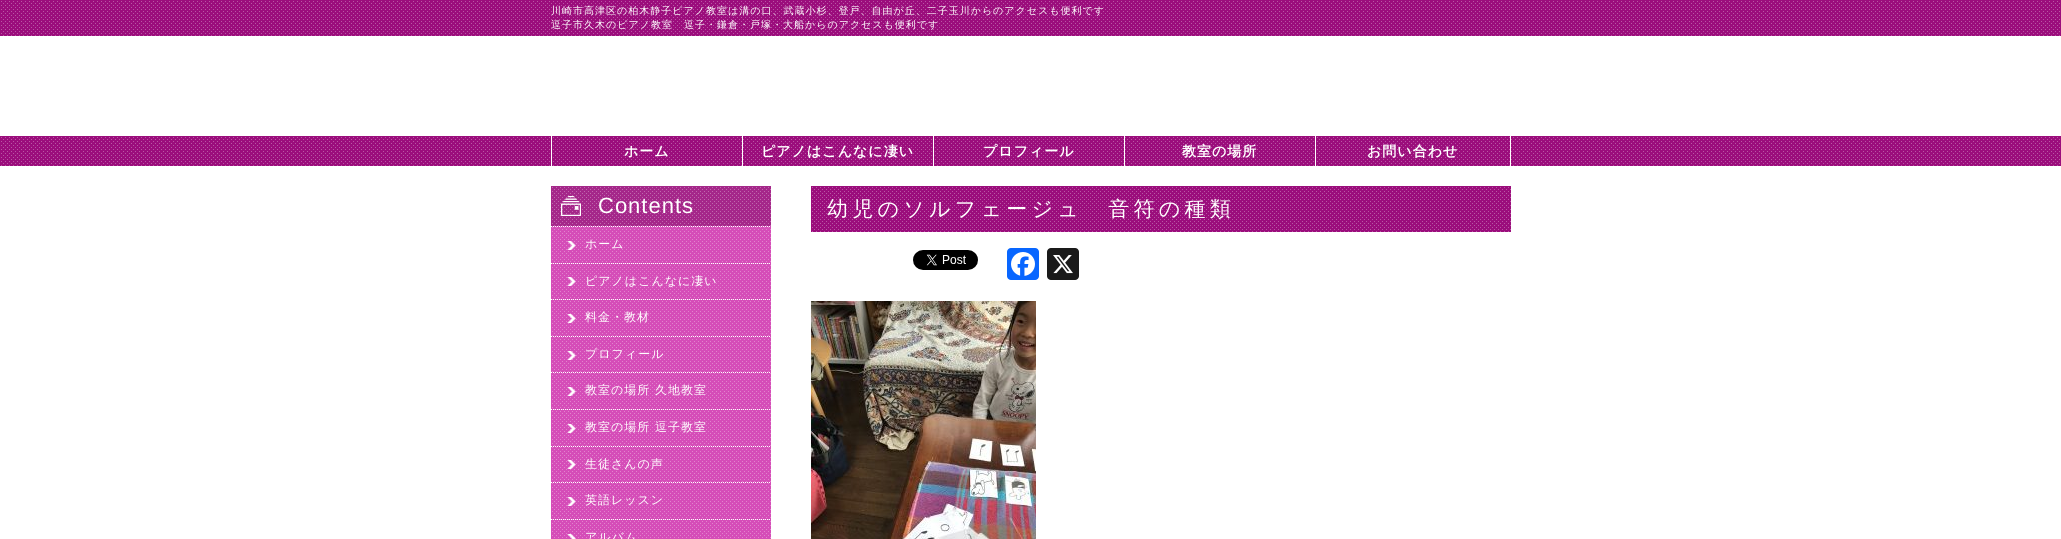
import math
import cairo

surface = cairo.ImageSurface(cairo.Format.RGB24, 2061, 539)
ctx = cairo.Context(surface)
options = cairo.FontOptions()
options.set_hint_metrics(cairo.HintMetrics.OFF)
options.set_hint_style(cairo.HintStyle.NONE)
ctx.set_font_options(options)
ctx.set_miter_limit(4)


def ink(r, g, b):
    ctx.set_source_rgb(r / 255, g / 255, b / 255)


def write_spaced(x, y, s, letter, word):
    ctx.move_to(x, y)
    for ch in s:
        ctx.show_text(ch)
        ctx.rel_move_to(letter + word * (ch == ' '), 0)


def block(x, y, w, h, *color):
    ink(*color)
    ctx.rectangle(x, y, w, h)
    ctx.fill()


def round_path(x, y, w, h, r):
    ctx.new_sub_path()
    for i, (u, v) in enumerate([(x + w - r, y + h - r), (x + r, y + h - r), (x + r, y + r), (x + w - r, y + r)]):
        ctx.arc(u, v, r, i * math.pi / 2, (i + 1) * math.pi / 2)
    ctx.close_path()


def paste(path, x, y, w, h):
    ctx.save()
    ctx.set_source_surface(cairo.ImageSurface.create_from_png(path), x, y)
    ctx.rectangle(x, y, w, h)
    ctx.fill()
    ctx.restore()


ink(255, 255, 255)
ctx.paint()
block(0, 0, 2061, 36, 155, 13, 124)
paste("pic1.png", 1, 1, 2059, 35)
ctx.select_font_face("WenQuanYi Zen Hei Medium")
ctx.set_font_size(10)
ink(255, 255, 255)
write_spaced(551, 14, "川崎市高津区の柏木静子ピアノ教室は溝の口、武蔵小杉、登戸、自由が丘、二子玉川からのアクセスも便利です", 1, 0)
write_spaced(551, 28, "逗子市久木のピアノ教室　逗子・鎌倉・戸塚・大船からのアクセスも便利です", 1, 0)
block(0, 136, 2061, 30, 155, 13, 124)
paste("pic2.png", 1, 137, 2059, 29)
block(551, 136, 1, 30, 255, 255, 255)
ctx.select_font_face("WenQuanYi Zen Hei", cairo.FontSlant.NORMAL, cairo.FontWeight.BOLD)
ctx.set_font_size(14)
write_spaced(624, 156, "ホーム", 1, 0)
block(742, 136, 1, 30, 255, 255, 255)
write_spaced(761, 156, "ピアノはこんなに凄い", 1, 0)
block(933, 136, 1, 30, 255, 255, 255)
write_spaced(983, 156, "プロフィール", 1, 0)
block(1124, 136, 1, 30, 255, 255, 255)
write_spaced(1182, 156, "教室の場所", 1, 0)
block(1510, 136, 1, 30, 255, 255, 255)
block(1315, 136, 1, 30, 255, 255, 255)
write_spaced(1367, 156, "お問い合わせ", 1, 0)
block(551, 186, 220, 40, 165, 39, 138)
paste("pic3.png", 552, 187, 219, 39)
paste("pic4.png", 561, 196, 20, 20)
ctx.select_font_face("Liberation Sans")
ctx.set_font_size(22)
ink(255, 255, 255)
write_spaced(598, 213, "Contents", 1, 0)
block(551, 226, 220, 313, 213, 77, 184)
paste("pic5.png", 552, 227, 219, 311)
paste("pic6.png", 567, 241, 9, 9)
ctx.new_path()
ctx.move_to(551, 226.5)
ctx.line_to(771, 226.5)
ink(255, 255, 255)
ctx.set_line_width(1)
ctx.set_dash([1, 1])
ctx.stroke()
ctx.select_font_face("WenQuanYi Zen Hei Medium")
ctx.set_font_size(12)
write_spaced(585, 248, "ホーム", 1, 0)
paste("pic6.png", 567, 277, 9, 9)
ctx.new_path()
ctx.move_to(551, 263.5)
ctx.line_to(771, 263.5)
ctx.stroke()
write_spaced(585, 285, "ピアノはこんなに凄い", 1, 0)
paste("pic7.png", 567, 314, 9, 9)
ctx.new_path()
ctx.move_to(551, 299.5)
ctx.line_to(771, 299.5)
ctx.stroke()
write_spaced(585, 321, "料金・教材", 1, 0)
paste("pic8.png", 567, 351, 9, 9)
ctx.new_path()
ctx.move_to(551, 336.5)
ctx.line_to(771, 336.5)
ctx.stroke()
write_spaced(585, 358, "プロフィール", 1, 0)
paste("pic8.png", 567, 387, 9, 9)
ctx.new_path()
ctx.move_to(551, 372.5)
ctx.line_to(771, 372.5)
ctx.stroke()
write_spaced(585, 394, "教室の場所 久地教室", 1, 0)
paste("pic9.png", 567, 424, 9, 9)
ctx.new_path()
ctx.move_to(551, 409.5)
ctx.line_to(771, 409.5)
ctx.stroke()
write_spaced(585, 431, "教室の場所 逗子教室", 1, 0)
paste("pic9.png", 567, 460, 9, 9)
ctx.new_path()
ctx.move_to(551, 446.5)
ctx.line_to(771, 446.5)
ctx.stroke()
write_spaced(585, 468, "生徒さんの声", 1, 0)
paste("pic6.png", 567, 497, 9, 9)
ctx.new_path()
ctx.move_to(551, 482.5)
ctx.line_to(771, 482.5)
ctx.stroke()
write_spaced(585, 504, "英語レッスン", 1, 0)
paste("pic10.png", 567, 534, 9, 5)
ctx.new_path()
ctx.move_to(551, 519.5)
ctx.line_to(771, 519.5)
ctx.stroke()
write_spaced(585, 541, "アルバム", 1, 0)
block(811, 186, 700, 46, 155, 13, 124)
paste("pic11.png", 812, 187, 699, 45)
ctx.set_font_size(21)
ink(255, 255, 255)
write_spaced(827, 216, "幼児のソルフェージュ　音符の種類", 4.25, 0)
paste("pic12.png", 913, 250, 65, 20)
ink(8, 102, 255)
round_path(1007, 248, 32, 32, 4)
ctx.fill()
paste("pic13.png", 1011, 252, 24, 24)
ink(26, 26, 26)
round_path(1047, 248, 32, 32, 4)
ctx.fill()
paste("pic14.png", 1053, 255, 20, 19)
paste("pic15.png", 811, 301, 225, 238)
surface.write_to_png("screenshot.png")
